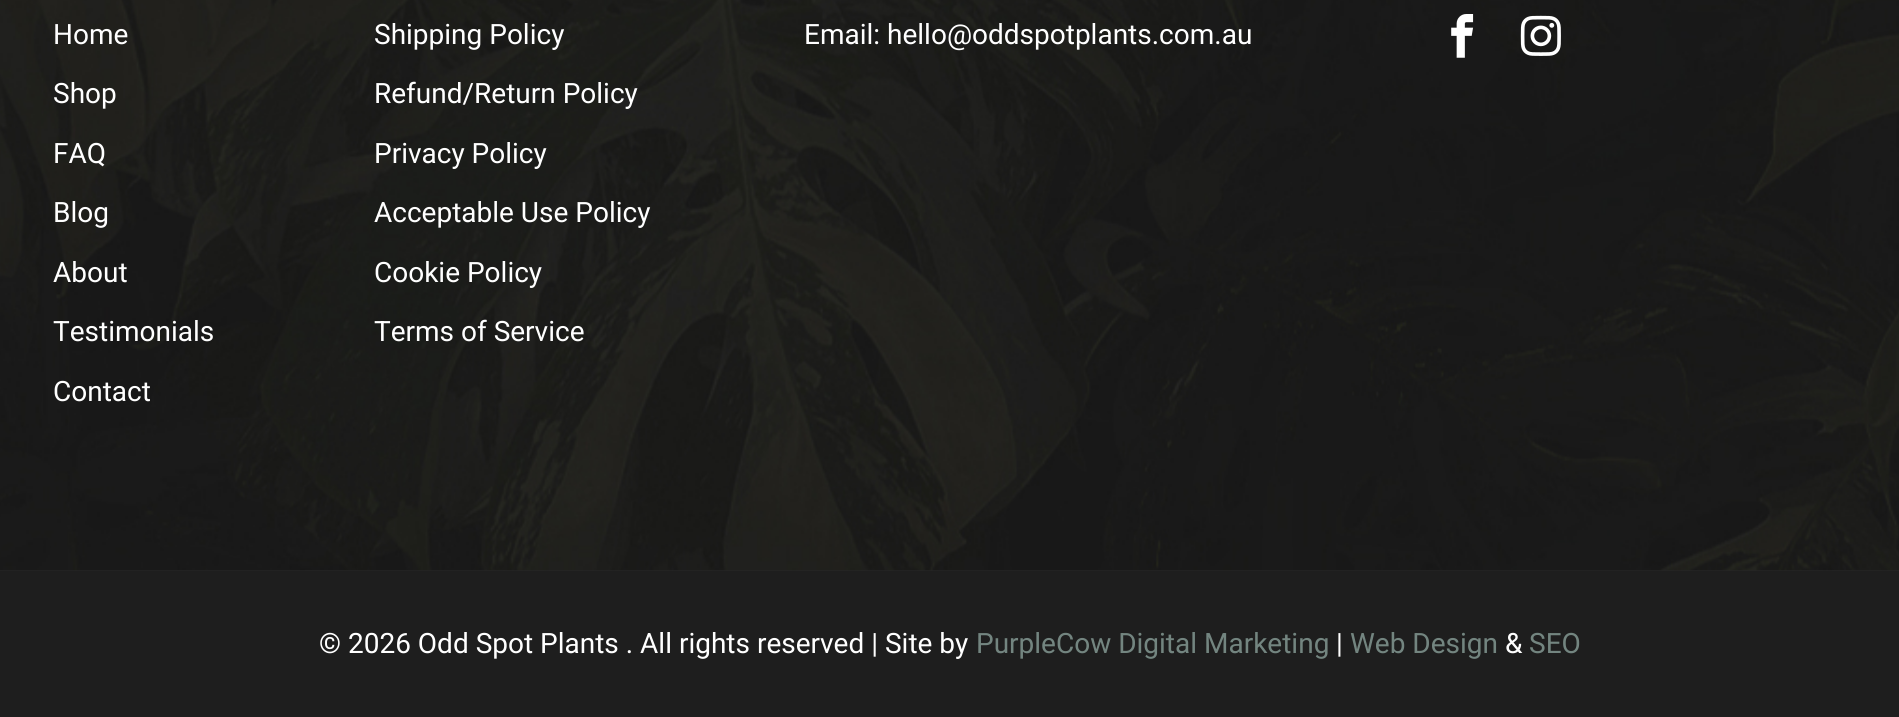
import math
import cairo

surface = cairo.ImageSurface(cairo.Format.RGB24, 1899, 717)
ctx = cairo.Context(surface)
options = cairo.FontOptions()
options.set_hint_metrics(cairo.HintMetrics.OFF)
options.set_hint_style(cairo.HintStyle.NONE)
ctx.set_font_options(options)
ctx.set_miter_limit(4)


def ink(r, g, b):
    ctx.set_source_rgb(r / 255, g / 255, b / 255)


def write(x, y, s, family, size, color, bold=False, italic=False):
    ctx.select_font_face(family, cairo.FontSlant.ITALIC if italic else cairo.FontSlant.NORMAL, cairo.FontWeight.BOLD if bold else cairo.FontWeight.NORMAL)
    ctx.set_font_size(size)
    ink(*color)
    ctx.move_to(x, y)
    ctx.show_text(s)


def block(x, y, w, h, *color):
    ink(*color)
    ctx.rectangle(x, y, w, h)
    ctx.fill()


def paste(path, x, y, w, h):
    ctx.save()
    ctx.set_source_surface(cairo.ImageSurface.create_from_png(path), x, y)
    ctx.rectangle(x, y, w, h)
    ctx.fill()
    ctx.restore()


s1 = dict(family="Roboto", size=28, color=(255, 255, 255))
s2 = dict(family="Roboto", size=28, color=(115, 133, 128))

ink(38, 38, 38)
ctx.paint()
paste("pic1.png", 0, 0, 1899, 571)
write(53, 44, "Home", **s1)
write(53, 103, "Shop", **s1)
write(53, 163, "FAQ", **s1)
write(53, 222, "Blog", **s1)
write(53, 282, "About", **s1)
write(53, 341, "Testimonials", **s1)
write(53, 401, "Contact", **s1)
write(374, 44, "Shipping Policy", **s1)
write(374, 103, "Refund/Return Policy", **s1)
write(374, 163, "Privacy Policy", **s1)
write(374, 222, "Acceptable Use Policy", **s1)
write(374, 282, "Cookie Policy", **s1)
write(374, 341, "Terms of Service", **s1)
write(804, 44, "Email: hello@oddspotplants.com.au", **s1)
paste("pic2.png", 1451, 14, 23, 44)
paste("pic3.png", 1520, 15, 41, 41)
block(0, 571, 1899, 146, 30, 30, 30)
write(319, 653, "© 2026 Odd Spot Plants . All rights reserved | Site by", **s1)
write(976, 653, "PurpleCow Digital Marketing", **s2)
write(1336, 653, "|", **s1)
write(1350, 653, "Web Design", **s2)
write(1505, 653, "&", **s1)
write(1529, 653, "SEO", **s2)
surface.write_to_png("screenshot.png")
